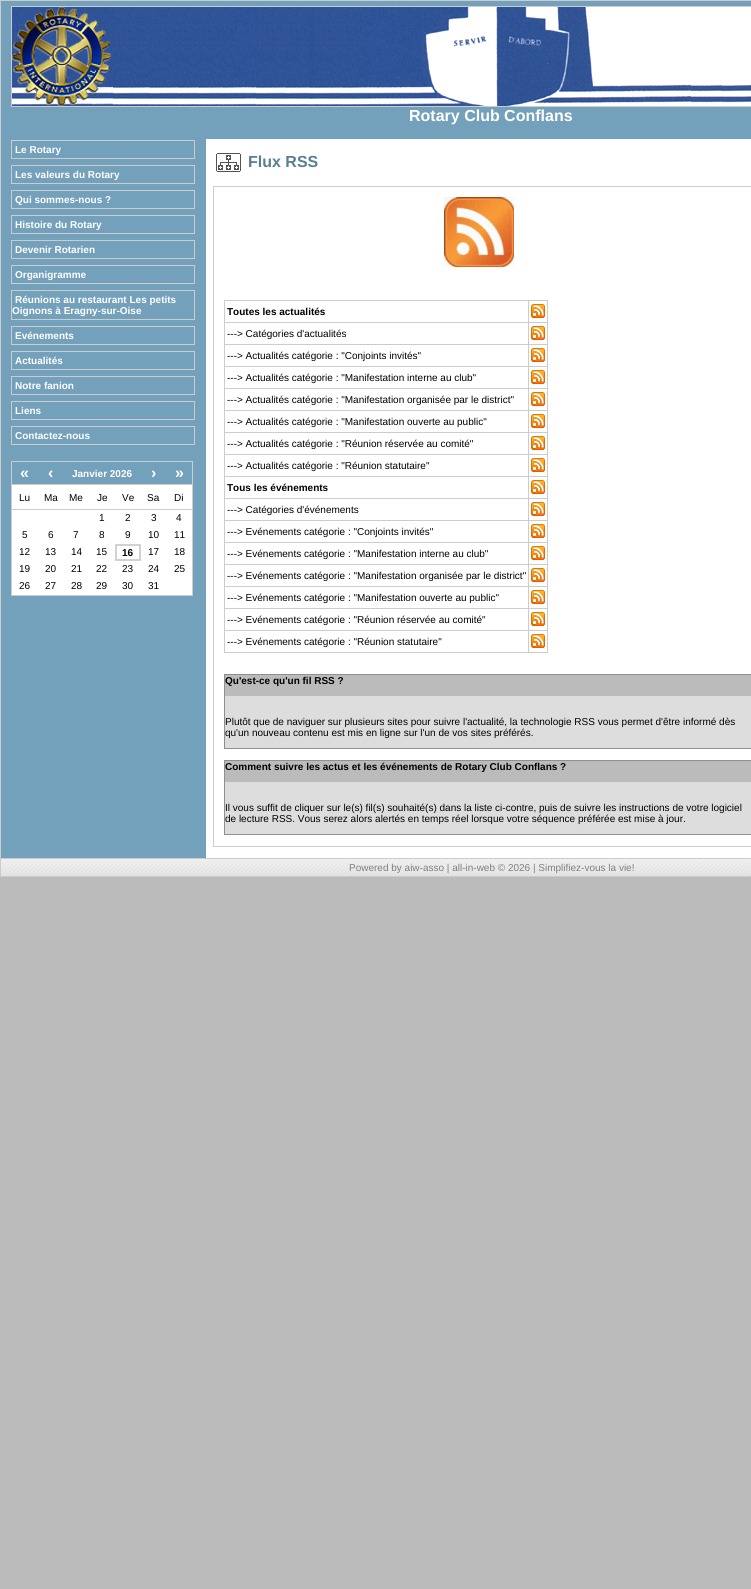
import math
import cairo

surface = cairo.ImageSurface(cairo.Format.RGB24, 751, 1589)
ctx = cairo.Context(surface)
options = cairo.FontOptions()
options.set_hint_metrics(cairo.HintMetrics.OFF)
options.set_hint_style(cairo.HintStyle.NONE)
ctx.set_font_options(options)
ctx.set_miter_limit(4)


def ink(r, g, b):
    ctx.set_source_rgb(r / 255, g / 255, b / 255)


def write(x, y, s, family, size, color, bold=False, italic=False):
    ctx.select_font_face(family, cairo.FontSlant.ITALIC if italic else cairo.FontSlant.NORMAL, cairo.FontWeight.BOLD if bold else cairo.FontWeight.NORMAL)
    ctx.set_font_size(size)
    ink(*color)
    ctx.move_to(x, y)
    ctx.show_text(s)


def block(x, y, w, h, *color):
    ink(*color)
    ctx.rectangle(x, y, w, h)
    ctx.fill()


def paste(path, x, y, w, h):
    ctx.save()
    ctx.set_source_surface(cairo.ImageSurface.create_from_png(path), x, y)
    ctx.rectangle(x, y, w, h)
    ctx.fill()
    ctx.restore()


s1 = dict(family="Liberation Sans", size=16, color=(255, 255, 255), bold=True)
s2 = dict(family="Liberation Sans", size=10, color=(255, 255, 255), bold=True)
s3 = dict(family="Liberation Sans", size=10, color=(0, 0, 0))
s4 = dict(family="Liberation Sans", size=10, color=(0, 0, 0), bold=True)
s5 = dict(family="Liberation Sans", size=16, color=(88, 127, 150), bold=True)
s6 = dict(family="Liberation Sans", size=10, color=(128, 128, 128))

ink(187, 187, 187)
ctx.paint()
ctx.rectangle(0.5, 0.5, 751, 876)
ink(204, 204, 204)
ctx.set_line_width(1)
ctx.stroke()
block(1, 1, 750, 138, 115, 160, 187)
ctx.rectangle(11.5, 6.5, 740, 100)
ink(204, 204, 204)
ctx.stroke()
paste("pic1.png", 12, 7, 739, 99)
write(409, 121, "Rotary Club Conflans", **s1)
block(1, 139, 205, 719, 115, 160, 187)
block(206, 139, 545, 719, 255, 255, 255)
ctx.rectangle(11.5, 140.5, 183, 18)
ink(204, 204, 204)
ctx.stroke()
write(15, 153, "Le Rotary", **s2)
ctx.rectangle(11.5, 165.5, 183, 18)
ink(204, 204, 204)
ctx.stroke()
write(15, 178, "Les valeurs du Rotary", **s2)
ctx.rectangle(11.5, 190.5, 183, 18)
ink(204, 204, 204)
ctx.stroke()
write(15, 203, "Qui sommes-nous ?", **s2)
ctx.rectangle(11.5, 215.5, 183, 18)
ink(204, 204, 204)
ctx.stroke()
write(15, 228, "Histoire du Rotary", **s2)
ctx.rectangle(11.5, 240.5, 183, 18)
ink(204, 204, 204)
ctx.stroke()
write(15, 253, "Devenir Rotarien", **s2)
ctx.rectangle(11.5, 265.5, 183, 18)
ink(204, 204, 204)
ctx.stroke()
write(15, 278, "Organigramme", **s2)
ctx.rectangle(11.5, 290.5, 183, 29)
ink(204, 204, 204)
ctx.stroke()
write(15, 303, "Réunions au restaurant Les petits", **s2)
write(12, 314, "Oignons à Eragny-sur-Oise", **s2)
ctx.rectangle(11.5, 326.5, 183, 18)
ink(204, 204, 204)
ctx.stroke()
write(15, 339, "Evénements", **s2)
ctx.rectangle(11.5, 351.5, 183, 18)
ink(204, 204, 204)
ctx.stroke()
write(15, 364, "Actualités", **s2)
ctx.rectangle(11.5, 376.5, 183, 18)
ink(204, 204, 204)
ctx.stroke()
write(15, 389, "Notre fanion", **s2)
ctx.rectangle(11.5, 401.5, 183, 18)
ink(204, 204, 204)
ctx.stroke()
write(15, 414, "Liens", **s2)
ctx.rectangle(11.5, 426.5, 183, 18)
ink(204, 204, 204)
ctx.stroke()
write(15, 439, "Contactez-nous", **s2)
block(12, 485, 180, 110, 255, 255, 255)
ctx.rectangle(11.5, 461.5, 181, 134)
ink(204, 204, 204)
ctx.stroke()
block(12, 484, 180, 1, 204, 204, 204)
write(20, 478, "«", **s1)
write(48, 478, "‹", **s1)
write(72, 477, "Janvier 2026", **s2)
write(151, 478, "›", **s1)
write(175, 478, "»", **s1)
block(12, 509, 180, 1, 204, 204, 204)
write(19, 501, "Lu", **s3)
write(44, 501, "Ma", **s3)
write(69, 501, "Me", **s3)
write(97, 501, "Je", **s3)
write(122, 501, "Ve", **s3)
write(147, 501, "Sa", **s3)
write(174, 501, "Di", **s3)
write(99, 521, "1", **s3)
write(125, 521, "2", **s3)
write(151, 521, "3", **s3)
write(176, 521, "4", **s3)
write(22, 538, "5", **s3)
write(48, 538, "6", **s3)
write(73, 538, "7", **s3)
write(99, 538, "8", **s3)
write(125, 538, "9", **s3)
write(148, 538, "10", **s3)
write(174, 538, "11", **s3)
write(19, 555, "12", **s3)
write(45, 555, "13", **s3)
write(71, 555, "14", **s3)
write(96, 555, "15", **s3)
ctx.rectangle(116, 545, 24, 15)
ink(210, 210, 210)
ctx.set_line_width(2)
ctx.stroke()
write(122, 556, "16", **s4)
write(148, 555, "17", **s3)
write(174, 555, "18", **s3)
write(19, 572, "19", **s3)
write(45, 572, "20", **s3)
write(71, 572, "21", **s3)
write(96, 572, "22", **s3)
write(122, 572, "23", **s3)
write(148, 572, "24", **s3)
write(174, 572, "25", **s3)
write(19, 589, "26", **s3)
write(45, 589, "27", **s3)
write(71, 589, "28", **s3)
write(96, 589, "29", **s3)
write(122, 589, "30", **s3)
write(148, 589, "31", **s3)
paste("pic2.png", 216, 153, 25, 19)
write(248, 167, "Flux RSS", **s5)
ctx.rectangle(213.5, 186.5, 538, 660)
ink(204, 204, 204)
ctx.set_line_width(1)
ctx.stroke()
paste("pic3.png", 444, 197, 70, 70)
block(224, 300, 324, 1, 204, 204, 204)
block(547, 300, 1, 353, 204, 204, 204)
block(224, 652, 324, 1, 204, 204, 204)
block(224, 300, 1, 353, 204, 204, 204)
write(227, 315, "Toutes les actualités", **s4)
block(528, 322, 20, 1, 204, 204, 204)
block(528, 344, 20, 1, 204, 204, 204)
block(528, 366, 20, 1, 204, 204, 204)
block(528, 388, 20, 1, 204, 204, 204)
block(528, 410, 20, 1, 204, 204, 204)
block(528, 432, 20, 1, 204, 204, 204)
block(528, 454, 20, 1, 204, 204, 204)
block(528, 476, 20, 1, 204, 204, 204)
block(528, 498, 20, 1, 204, 204, 204)
block(528, 520, 20, 1, 204, 204, 204)
block(528, 542, 20, 1, 204, 204, 204)
block(528, 564, 20, 1, 204, 204, 204)
block(528, 586, 20, 1, 204, 204, 204)
block(528, 608, 20, 1, 204, 204, 204)
block(528, 630, 20, 1, 204, 204, 204)
block(528, 630, 1, 23, 204, 204, 204)
block(224, 630, 305, 1, 204, 204, 204)
block(528, 608, 1, 23, 204, 204, 204)
block(224, 608, 305, 1, 204, 204, 204)
block(528, 586, 1, 23, 204, 204, 204)
block(224, 586, 305, 1, 204, 204, 204)
block(528, 564, 1, 23, 204, 204, 204)
block(224, 564, 305, 1, 204, 204, 204)
block(528, 542, 1, 23, 204, 204, 204)
block(224, 542, 305, 1, 204, 204, 204)
block(528, 520, 1, 23, 204, 204, 204)
block(224, 520, 305, 1, 204, 204, 204)
block(528, 498, 1, 23, 204, 204, 204)
block(224, 498, 305, 1, 204, 204, 204)
block(528, 476, 1, 23, 204, 204, 204)
block(224, 476, 305, 1, 204, 204, 204)
block(528, 454, 1, 23, 204, 204, 204)
block(224, 454, 305, 1, 204, 204, 204)
block(528, 432, 1, 23, 204, 204, 204)
block(224, 432, 305, 1, 204, 204, 204)
block(528, 410, 1, 23, 204, 204, 204)
block(224, 410, 305, 1, 204, 204, 204)
block(528, 388, 1, 23, 204, 204, 204)
block(224, 388, 305, 1, 204, 204, 204)
block(528, 366, 1, 23, 204, 204, 204)
block(224, 366, 305, 1, 204, 204, 204)
block(528, 344, 1, 23, 204, 204, 204)
block(224, 344, 305, 1, 204, 204, 204)
block(528, 322, 1, 23, 204, 204, 204)
block(224, 322, 305, 1, 204, 204, 204)
block(528, 300, 1, 23, 204, 204, 204)
paste("pic4.png", 531, 304, 14, 14)
write(227, 337, "---> Catégories d'actualités", **s3)
paste("pic4.png", 531, 326, 14, 14)
write(227, 359, "---> Actualités catégorie : \"Conjoints invités\"", **s3)
paste("pic4.png", 531, 348, 14, 14)
write(227, 381, "---> Actualités catégorie : \"Manifestation interne au club\"", **s3)
paste("pic4.png", 531, 370, 14, 14)
write(227, 403, "---> Actualités catégorie : \"Manifestation organisée par le district\"", **s3)
paste("pic4.png", 531, 392, 14, 14)
write(227, 425, "---> Actualités catégorie : \"Manifestation ouverte au public\"", **s3)
paste("pic4.png", 531, 414, 14, 14)
write(227, 447, "---> Actualités catégorie : \"Réunion réservée au comité\"", **s3)
paste("pic4.png", 531, 436, 14, 14)
write(227, 469, "---> Actualités catégorie : \"Réunion statutaire\"", **s3)
paste("pic4.png", 531, 458, 14, 14)
write(227, 491, "Tous les événements", **s4)
paste("pic4.png", 531, 480, 14, 14)
write(227, 513, "---> Catégories d'événements", **s3)
paste("pic4.png", 531, 502, 14, 14)
write(227, 535, "---> Evénements catégorie : \"Conjoints invités\"", **s3)
paste("pic4.png", 531, 524, 14, 14)
write(227, 557, "---> Evénements catégorie : \"Manifestation interne au club\"", **s3)
paste("pic4.png", 531, 546, 14, 14)
write(227, 579, "---> Evénements catégorie : \"Manifestation organisée par le district\"", **s3)
paste("pic4.png", 531, 568, 14, 14)
write(227, 601, "---> Evénements catégorie : \"Manifestation ouverte au public\"", **s3)
paste("pic4.png", 531, 590, 14, 14)
write(227, 623, "---> Evénements catégorie : \"Réunion réservée au comité\"", **s3)
paste("pic4.png", 531, 612, 14, 14)
write(227, 645, "---> Evénements catégorie : \"Réunion statutaire\"", **s3)
paste("pic4.png", 531, 634, 14, 14)
block(225, 696, 526, 52, 221, 221, 221)
ctx.rectangle(224.5, 674.5, 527, 74)
ink(143, 143, 143)
ctx.stroke()
block(225, 675, 526, 21, 187, 187, 187)
write(225, 684, "Qu'est-ce qu'un fil RSS ?", **s4)
write(225, 725, "Plutôt que de naviguer sur plusieurs sites pour suivre l'actualité, la technologie RSS vous permet d'être informé dès", **s3)
write(225, 736, "qu'un nouveau contenu est mis en ligne sur l'un de vos sites préférés.", **s3)
block(225, 782, 526, 52, 221, 221, 221)
ctx.rectangle(224.5, 760.5, 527, 74)
ink(143, 143, 143)
ctx.stroke()
block(225, 761, 526, 21, 187, 187, 187)
write(225, 770, "Comment suivre les actus et les événements de Rotary Club Conflans ?", **s4)
write(225, 811, "Il vous suffit de cliquer sur le(s) fil(s) souhaité(s) dans la liste ci-contre, puis de suivre les instructions de votre logiciel", **s3)
write(225, 822, "de lecture RSS. Vous serez alors alertés en temps réel lorsque votre séquence préférée est mise à jour.", **s3)
paste("pic5.png", 1, 859, 750, 17)
block(1, 858, 750, 1, 204, 204, 204)
write(349, 871, "Powered by aiw-asso | all-in-web © 2026 | Simplifiez-vous la vie!", **s6)
surface.write_to_png("screenshot.png")
